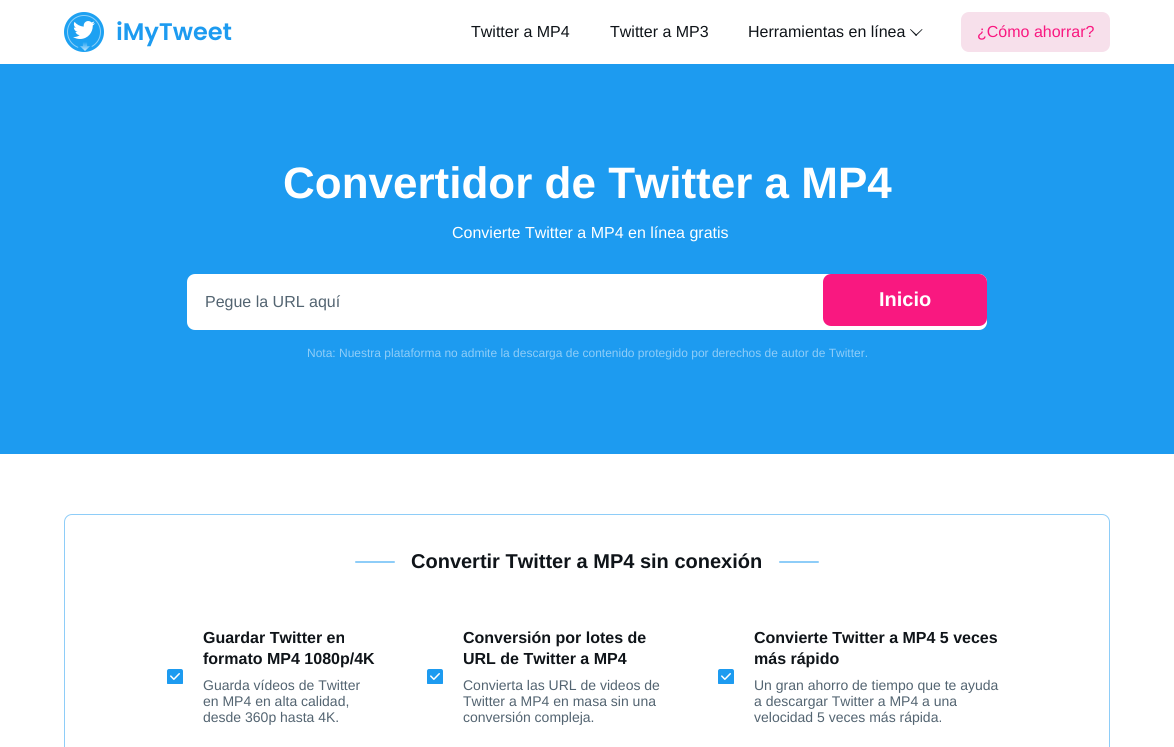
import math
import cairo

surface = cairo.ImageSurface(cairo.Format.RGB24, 1174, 747)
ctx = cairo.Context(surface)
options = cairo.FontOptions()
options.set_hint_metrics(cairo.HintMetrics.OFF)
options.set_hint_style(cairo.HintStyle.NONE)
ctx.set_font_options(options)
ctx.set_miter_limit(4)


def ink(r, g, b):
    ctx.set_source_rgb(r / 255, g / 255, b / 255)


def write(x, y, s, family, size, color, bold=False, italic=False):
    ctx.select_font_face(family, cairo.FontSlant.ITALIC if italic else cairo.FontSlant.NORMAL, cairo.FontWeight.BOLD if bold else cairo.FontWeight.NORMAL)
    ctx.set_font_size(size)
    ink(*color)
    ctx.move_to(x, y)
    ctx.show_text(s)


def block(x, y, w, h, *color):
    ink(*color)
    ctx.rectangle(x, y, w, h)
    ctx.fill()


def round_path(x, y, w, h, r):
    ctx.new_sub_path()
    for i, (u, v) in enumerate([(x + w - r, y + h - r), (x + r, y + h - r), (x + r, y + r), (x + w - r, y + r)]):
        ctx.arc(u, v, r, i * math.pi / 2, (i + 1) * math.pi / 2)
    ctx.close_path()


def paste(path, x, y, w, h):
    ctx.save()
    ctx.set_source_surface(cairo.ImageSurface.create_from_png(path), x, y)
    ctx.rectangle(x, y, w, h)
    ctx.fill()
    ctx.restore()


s1 = dict(family="Liberation Sans", size=16, color=(15, 20, 25))
s2 = dict(family="Liberation Sans", size=16, color=(249, 24, 128))
s3 = dict(family="Liberation Sans", size=44, color=(255, 255, 255), bold=True)
s4 = dict(family="Liberation Sans", size=16, color=(255, 255, 255))
s5 = dict(family="Liberation Sans", size=16, color=(83, 100, 113))
s6 = dict(family="Liberation Sans", size=20, color=(255, 255, 255), bold=True)
s7 = dict(family="Liberation Sans", size=12, color=(142, 205, 248))
s8 = dict(family="Liberation Sans", size=20, color=(15, 20, 25), bold=True)
s9 = dict(family="Liberation Sans", size=16, color=(15, 20, 25), bold=True)
s10 = dict(family="Liberation Sans", size=14, color=(83, 100, 113))

ink(255, 255, 255)
ctx.paint()
paste("pic1.png", 64, 12, 168, 40)
write(471, 37, "Twitter a MP4", **s1)
write(610, 37, "Twitter a MP3", **s1)
write(748, 37, "Herramientas en línea", **s1)
ctx.new_path()
ctx.move_to(922.5, 29.5)
ctx.line_to(916, 36)
ctx.line_to(915.5, 35)
ctx.line_to(922, 29)
ctx.close_path()
ctx.fill()
ctx.new_path()
ctx.move_to(917, 35)
ctx.line_to(916, 36)
ctx.line_to(910, 29.5)
ctx.line_to(910.5, 29)
ctx.close_path()
ctx.fill()
ink(247, 224, 235)
round_path(961, 12, 149, 40, 8)
ctx.fill()
write(977, 37, "¿Cómo ahorrar?", **s2)
block(0, 64, 1174, 390, 29, 155, 240)
write(283, 198, "Convertidor de Twitter a MP4", **s3)
write(452, 238, "Convierte Twitter a MP4 en línea gratis", **s4)
round_path(188, 275, 798, 54, 7)
ctx.fill_preserve()
ctx.stroke()
write(205, 307, "Pegue la URL aquí", **s5)
ink(249, 24, 128)
round_path(823, 274, 164, 52, 8)
ctx.fill()
write(879, 306, "Inicio", **s6)
write(307, 357, "Nota: Nuestra plataforma no admite la descarga de contenido protegido por derechos de autor de Twitter.", **s7)
round_path(64.5, 514.5, 1045, 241, 7.5)
ctx.set_line_width(1)
ctx.stroke()
round_path(355, 561, 40, 2, 1)
ctx.fill()
write(411, 568, "Convertir Twitter a MP4 sin conexión", **s8)
ink(142, 205, 248)
round_path(779, 561, 40, 2, 1)
ctx.fill()
write(203, 643, "Guardar Twitter en", **s9)
write(203, 664, "formato MP4 1080p/4K", **s9)
paste("pic2.png", 167, 669, 16, 15)
write(203, 690, "Guarda vídeos de Twitter", **s10)
write(203, 706, "en MP4 en alta calidad,", **s10)
write(203, 722, "desde 360p hasta 4K.", **s10)
write(463, 643, "Conversión por lotes de", **s9)
write(463, 664, "URL de Twitter a MP4", **s9)
paste("pic2.png", 427, 669, 16, 15)
write(463, 690, "Convierta las URL de videos de", **s10)
write(463, 706, "Twitter a MP4 en masa sin una", **s10)
write(463, 722, "conversión compleja.", **s10)
write(754, 643, "Convierte Twitter a MP4 5 veces", **s9)
write(754, 664, "más rápido", **s9)
paste("pic2.png", 718, 669, 16, 15)
write(754, 690, "Un gran ahorro de tiempo que te ayuda", **s10)
write(754, 706, "a descargar Twitter a MP4 a una", **s10)
write(754, 722, "velocidad 5 veces más rápida.", **s10)
surface.write_to_png("screenshot.png")
